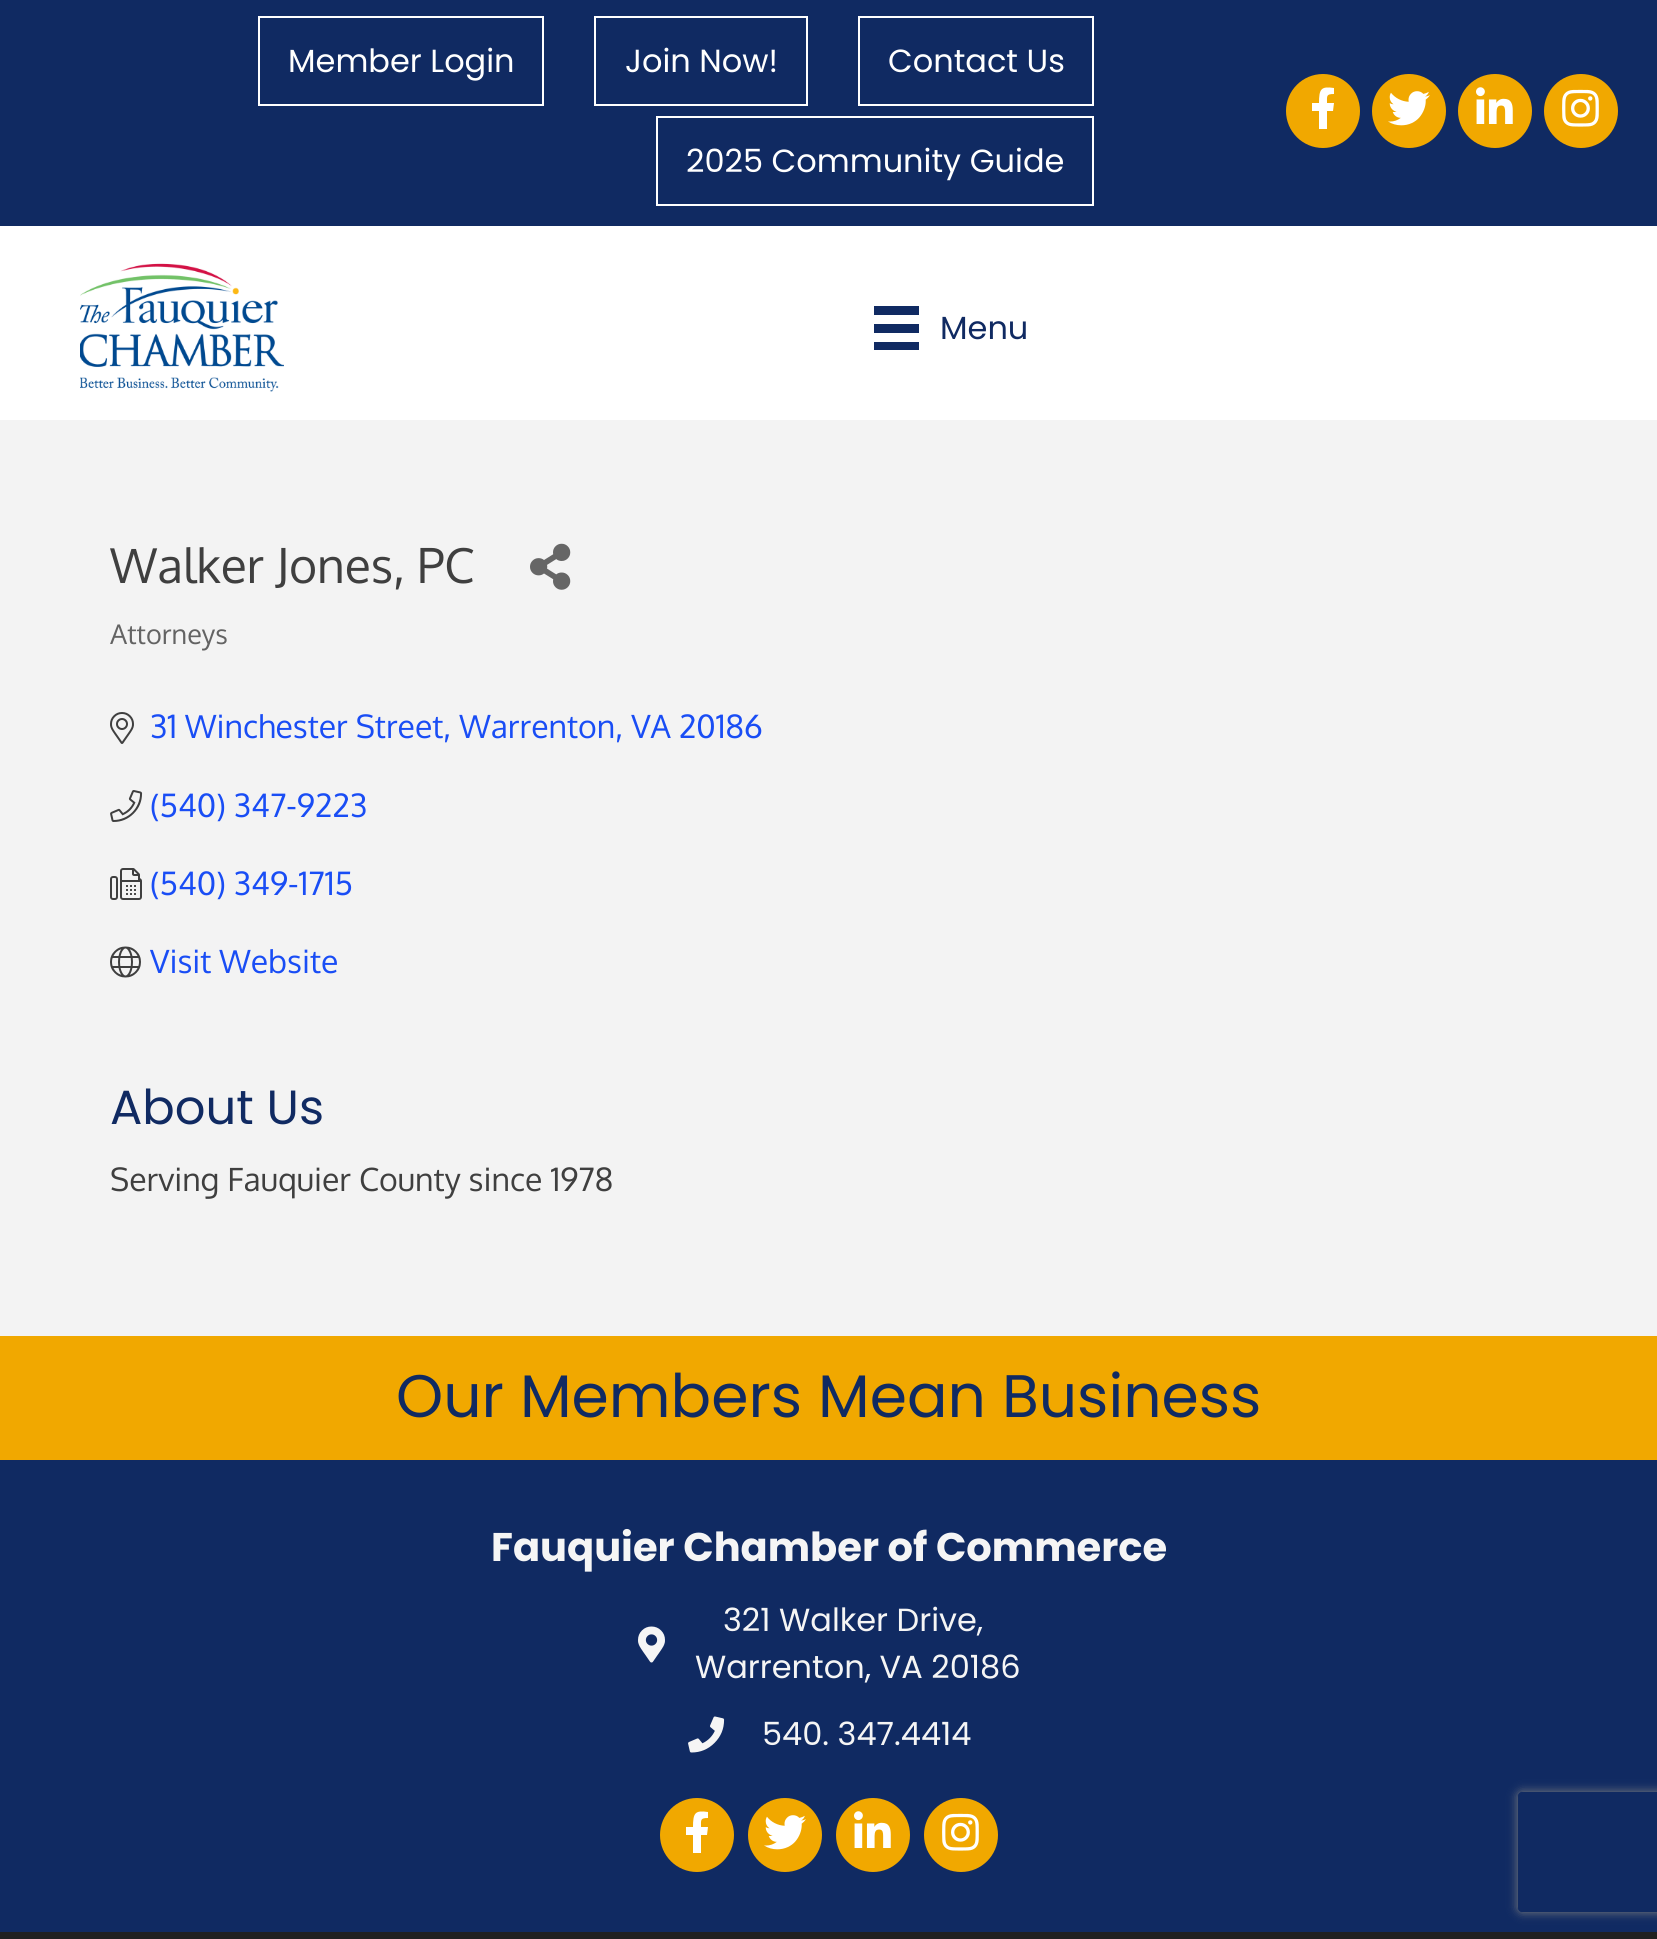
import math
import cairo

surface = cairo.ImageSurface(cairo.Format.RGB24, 1657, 1939)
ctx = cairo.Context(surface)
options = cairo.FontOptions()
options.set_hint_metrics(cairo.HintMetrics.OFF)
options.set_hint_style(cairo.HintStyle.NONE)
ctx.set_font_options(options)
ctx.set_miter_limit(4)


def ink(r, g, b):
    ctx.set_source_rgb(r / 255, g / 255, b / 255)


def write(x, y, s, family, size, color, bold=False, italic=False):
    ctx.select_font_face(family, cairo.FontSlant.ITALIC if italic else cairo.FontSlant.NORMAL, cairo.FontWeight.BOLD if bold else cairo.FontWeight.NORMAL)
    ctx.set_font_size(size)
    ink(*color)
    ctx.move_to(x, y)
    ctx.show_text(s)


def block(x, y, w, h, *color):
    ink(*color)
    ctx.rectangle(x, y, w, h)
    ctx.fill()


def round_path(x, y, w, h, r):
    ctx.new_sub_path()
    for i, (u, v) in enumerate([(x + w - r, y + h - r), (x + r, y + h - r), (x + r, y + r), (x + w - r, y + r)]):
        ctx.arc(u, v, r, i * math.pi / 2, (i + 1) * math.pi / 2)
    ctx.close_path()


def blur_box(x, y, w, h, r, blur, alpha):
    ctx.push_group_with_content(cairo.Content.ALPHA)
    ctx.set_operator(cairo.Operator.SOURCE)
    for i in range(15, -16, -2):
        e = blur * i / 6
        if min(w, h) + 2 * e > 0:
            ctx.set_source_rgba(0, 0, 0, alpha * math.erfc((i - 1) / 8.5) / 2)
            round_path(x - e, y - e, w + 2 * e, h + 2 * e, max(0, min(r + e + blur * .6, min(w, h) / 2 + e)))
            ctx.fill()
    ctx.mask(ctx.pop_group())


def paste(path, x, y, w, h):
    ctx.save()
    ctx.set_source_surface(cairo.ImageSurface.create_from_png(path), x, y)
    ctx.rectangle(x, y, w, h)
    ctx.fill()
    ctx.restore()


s1 = dict(family="Poppins", size=32, color=(255, 255, 255))
s2 = dict(family="Poppins", size=32, color=(16, 42, 98))
s3 = dict(family="Oxygen", size=48, color=(63, 63, 63))
s4 = dict(family="Oxygen", size=27, color=(99, 99, 99))
s5 = dict(family="Oxygen", size=32, color=(25, 77, 245))
s6 = dict(family="Poppins", size=48, color=(16, 42, 98))
s7 = dict(family="Oxygen", size=32, color=(63, 63, 63))
s8 = dict(family="Poppins", size=60, color=(16, 42, 98))
s9 = dict(family="Poppins", size=40, color=(245, 245, 245), bold=True)
s10 = dict(family="Poppins", size=32, color=(245, 245, 245))

ink(243, 243, 243)
ctx.paint()
block(0, 0, 1657, 226, 16, 42, 98)
ctx.rectangle(259, 17, 284, 88)
ink(255, 255, 255)
ctx.stroke()
write(288, 72, "Member Login", **s1)
ctx.rectangle(595, 17, 212, 88)
ctx.stroke()
write(625, 72, "Join Now!", **s1)
ctx.rectangle(859, 17, 234, 88)
ctx.stroke()
write(888, 72, "Contact Us", **s1)
ctx.rectangle(657, 117, 436, 88)
ctx.stroke()
write(686, 172, "2025 Community Guide", **s1)
ink(241, 168, 0)
ctx.new_path()
ctx.arc(1323, 111, 37, 0, 2 * math.pi)
ctx.fill()
ink(255, 255, 255)
ctx.new_path()
ctx.move_to(1333, 111)
ctx.line_to(1327, 111)
ctx.line_to(1327, 129)
ctx.line_to(1319, 129)
ctx.line_to(1319, 111)
ctx.line_to(1312, 111)
ctx.line_to(1312, 103)
ctx.line_to(1319, 103)
ctx.curve_to(1319, 89, 1321, 86, 1334, 88)
ctx.line_to(1334, 94)
ctx.curve_to(1326, 94, 1327, 96, 1327, 103)
ctx.line_to(1334, 103)
ctx.close_path()
ctx.fill()
ink(241, 168, 0)
ctx.arc(1409, 111, 37, 0, 2 * math.pi)
ctx.fill()
paste("pic1.png", 1388, 91, 42, 35)
ctx.arc(1495, 111, 37, 0, 2 * math.pi)
ctx.fill()
paste("pic2.png", 1476, 87, 37, 37)
ctx.arc(1581, 111, 37, 0, 2 * math.pi)
ctx.fill()
paste("pic3.png", 1562, 89, 37, 38)
block(0, 226, 1657, 194, 255, 255, 255)
paste("pic4.png", 80, 263, 204, 129)
block(874, 306, 45, 9, 16, 42, 98)
block(874, 324, 45, 9, 16, 42, 98)
block(874, 342, 45, 8, 16, 42, 98)
write(940, 339, "Menu", **s2)
write(110, 583, "Walker Jones, PC", **s3)
paste("pic5.png", 530, 543, 41, 47)
write(110, 644, "Attorneys", **s4)
paste("pic6.png", 110, 712, 24, 32)
write(150, 738, "31 Winchester Street, Warrenton, VA 20186", **s5)
paste("pic7.png", 110, 790, 33, 32)
write(150, 817, "(540) 347-9223", **s5)
paste("pic8.png", 110, 868, 32, 32)
write(150, 895, "(540) 349-1715", **s5)
paste("pic9.png", 110, 946, 31, 32)
write(150, 973, "Visit Website", **s5)
write(110, 1124, "About Us", **s6)
write(110, 1191, "Serving Fauquier County since 1978", **s7)
block(0, 1336, 1657, 124, 241, 168, 0)
write(396, 1417, "Our Members Mean Business", **s8)
block(0, 1460, 1657, 472, 16, 42, 98)
write(491, 1561, "Fauquier Chamber of Commerce", **s9)
paste("pic10.png", 638, 1626, 27, 37)
write(723, 1631, "321 Walker Drive,", **s10)
write(695, 1678, "Warrenton, VA 20186", **s10)
paste("pic11.png", 688, 1716, 37, 37)
write(762, 1745, "540. 347.4414", **s10)
ink(241, 168, 0)
ctx.new_path()
ctx.arc(697, 1835, 37, 0, 2 * math.pi)
ctx.fill()
ink(255, 255, 255)
ctx.new_path()
ctx.move_to(707, 1835)
ctx.line_to(701, 1835)
ctx.line_to(701, 1853)
ctx.line_to(693, 1853)
ctx.line_to(693, 1835)
ctx.line_to(686, 1835)
ctx.line_to(686, 1827)
ctx.line_to(693, 1827)
ctx.curve_to(693, 1813, 695, 1810, 708, 1812)
ctx.line_to(708, 1818)
ctx.curve_to(700, 1818, 701, 1820, 701, 1827)
ctx.line_to(708, 1827)
ctx.close_path()
ctx.fill()
ink(241, 168, 0)
ctx.arc(785, 1835, 37, 0, 2 * math.pi)
ctx.fill()
paste("pic1.png", 764, 1815, 42, 35)
ctx.arc(873, 1835, 37, 0, 2 * math.pi)
ctx.fill()
paste("pic2.png", 854, 1811, 37, 37)
ctx.arc(961, 1835, 37, 0, 2 * math.pi)
ctx.fill()
paste("pic3.png", 942, 1813, 37, 38)
block(0, 1932, 1657, 7, 32, 32, 32)
ctx.save()
ctx.set_fill_rule(cairo.FillRule.EVEN_ODD)
ctx.new_path()
ctx.move_to(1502, 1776)
ctx.line_to(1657, 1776)
ctx.line_to(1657, 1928)
ctx.line_to(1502, 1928)
ctx.close_path()
ctx.move_to(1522, 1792)
ctx.line_to(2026, 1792)
ctx.curve_to(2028, 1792, 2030, 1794, 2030, 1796)
ctx.line_to(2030, 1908)
ctx.curve_to(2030, 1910, 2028, 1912, 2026, 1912)
ctx.line_to(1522, 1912)
ctx.curve_to(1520, 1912, 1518, 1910, 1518, 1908)
ctx.line_to(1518, 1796)
ctx.curve_to(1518, 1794, 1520, 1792, 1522, 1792)
ctx.close_path()
ctx.clip()
ink(128, 128, 128)
blur_box(1518, 1792, 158, 120, 4, 5, 1)
ctx.restore()
surface.write_to_png("screenshot.png")
